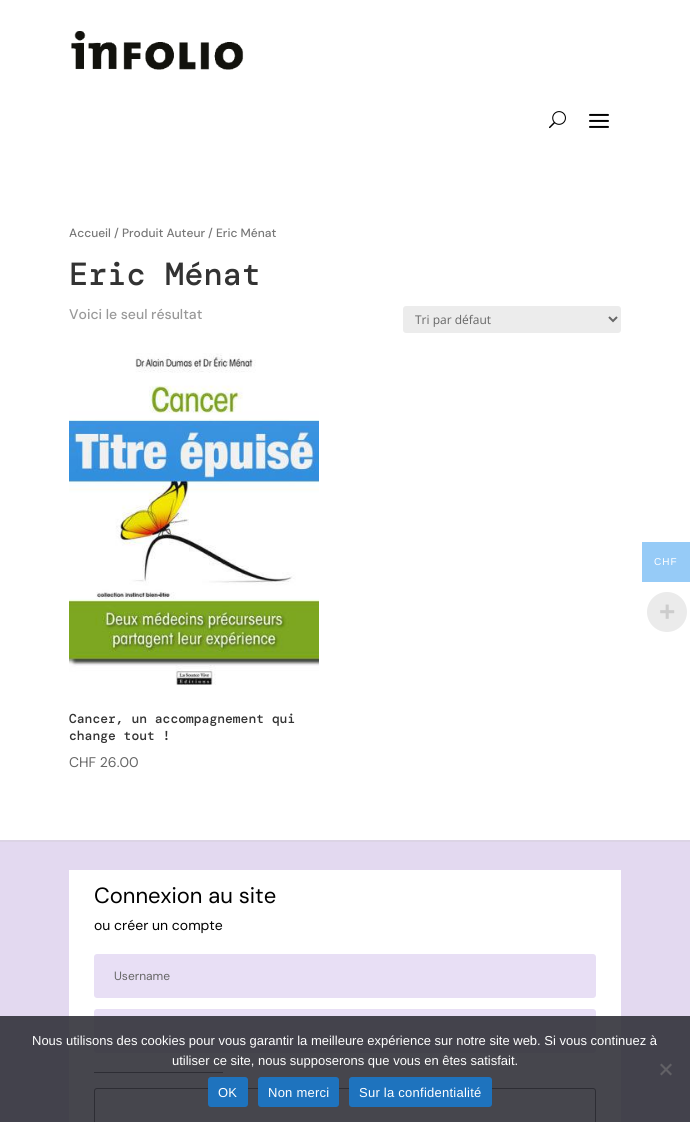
import math
import cairo

surface = cairo.ImageSurface(cairo.Format.RGB24, 690, 1122)
ctx = cairo.Context(surface)
options = cairo.FontOptions()
options.set_hint_metrics(cairo.HintMetrics.OFF)
options.set_hint_style(cairo.HintStyle.NONE)
ctx.set_font_options(options)
ctx.set_miter_limit(4)


def ink(r, g, b):
    ctx.set_source_rgb(r / 255, g / 255, b / 255)


def write(x, y, s, family, size, color, bold=False, italic=False):
    ctx.select_font_face(family, cairo.FontSlant.ITALIC if italic else cairo.FontSlant.NORMAL, cairo.FontWeight.BOLD if bold else cairo.FontWeight.NORMAL)
    ctx.set_font_size(size)
    ink(*color)
    ctx.move_to(x, y)
    ctx.show_text(s)


def write_spaced(x, y, s, letter, word):
    ctx.move_to(x, y)
    for ch in s:
        ctx.show_text(ch)
        ctx.rel_move_to(letter + word * (ch == ' '), 0)


def block(x, y, w, h, *color):
    ink(*color)
    ctx.rectangle(x, y, w, h)
    ctx.fill()


def round_path(x, y, w, h, r):
    ctx.new_sub_path()
    for i, (u, v) in enumerate([(x + w - r, y + h - r), (x + r, y + h - r), (x + r, y + r), (x + w - r, y + r)]):
        ctx.arc(u, v, r, i * math.pi / 2, (i + 1) * math.pi / 2)
    ctx.close_path()


def paste(path, x, y, w, h):
    ctx.save()
    ctx.set_source_surface(cairo.ImageSurface.create_from_png(path), x, y)
    ctx.rectangle(x, y, w, h)
    ctx.fill()
    ctx.restore()


s1 = dict(family="DM Sans Medium", size=12, color=(118, 118, 118))
s2 = dict(family="DM Mono Medium", size=32, color=(51, 51, 51))
s3 = dict(family="DM Sans Medium", size=14, color=(153, 153, 153))
s4 = dict(family="Open Sans", size=12, color=(102, 102, 102))
s5 = dict(family="DM Mono Medium", size=13, color=(51, 51, 51))
s6 = dict(family="DM Sans", size=14, color=(102, 102, 102))
s7 = dict(family="DM Sans", size=22, color=(0, 0, 0))
s8 = dict(family="DM Sans", size=14, color=(0, 0, 0))
s9 = dict(family="DM Sans", size=12, color=(102, 102, 102))
s10 = dict(family="Liberation Sans", size=28, color=(204, 204, 204), bold=True)
s11 = dict(family="Liberation Sans", size=13, color=(255, 255, 255))

ink(255, 255, 255)
ctx.paint()
paste("pic1.png", 71, 31, 173, 39)
paste("pic2.png", 549, 111, 17, 18)
paste("pic3.png", 589, 113, 20, 15)
write(69, 237, "Accueil / Produit Auteur / Eric Ménat", **s1)
write(69, 285, "Eric Ménat", **s2)
write(69, 319, "Voici le seul résultat", **s3)
ink(236, 236, 236)
round_path(403, 306, 218, 27, 3)
ctx.fill()
ctx.new_path()
ctx.move_to(609, 317)
ctx.line_to(613, 321)
ctx.line_to(617, 317)
ink(102, 102, 102)
ctx.stroke()
write(415, 324, "Tri par défaut", **s4)
paste("pic4.png", 69, 353, 250, 332)
write(69, 723, "Cancer, un accompagnement qui", **s5)
write(69, 740, "change tout !", **s5)
write(69, 767, "CHF 26.00", **s6)
block(0, 842, 690, 280, 227, 217, 240)
block(0, 840, 690, 2, 220, 212, 229)
block(69, 870, 552, 252, 255, 255, 255)
write(94, 903, "Connexion au site", **s7)
write(94, 930, "ou créer un compte", **s8)
ink(232, 223, 245)
round_path(94, 954, 502, 44, 3)
ctx.fill()
write(114, 980, "Username", **s9)
ink(232, 223, 245)
round_path(94, 1009, 502, 44, 3)
ctx.fill()
block(94, 1072, 129, 1, 0, 0, 0)
round_path(94.5, 1088.5, 501, 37, 2.5)
ctx.set_line_width(1)
ctx.stroke()
block(642, 542, 48, 40, 150, 203, 247)
ctx.select_font_face("Liberation Sans")
ctx.set_font_size(10)
ink(255, 255, 255)
write_spaced(654, 565, "CHF", 1, 0)
ink(235, 235, 235)
ctx.new_path()
ctx.arc(667, 612, 20, 0, 2 * math.pi)
ctx.fill()
write(659, 621, "+", **s10)
ctx.set_source_rgba(0.196, 0.196, 0.227, 0.9)
ctx.rectangle(0, 1016, 690, 106)
ctx.fill()
write(32, 1045, "Nous utilisons des cookies pour vous garantir la meilleure expérience sur notre site web. Si vous continuez à", **s11)
write(172, 1065, "utiliser ce site, nous supposerons que vous en êtes satisfait.", **s11)
ink(98, 97, 102)
ctx.new_path()
ctx.move_to(670.5, 1063.5)
ctx.line_to(672, 1065)
ctx.line_to(661.5, 1075.5)
ctx.line_to(660, 1074)
ctx.close_path()
ctx.fill()
ctx.new_path()
ctx.move_to(660, 1065)
ctx.line_to(661.5, 1063.5)
ctx.line_to(672, 1074)
ctx.line_to(670.5, 1075.5)
ctx.close_path()
ctx.fill()
ink(30, 115, 190)
round_path(208, 1077, 40, 30, 3)
ctx.fill()
ink(255, 255, 255)
write_spaced(218, 1097, "OK", 0.25, 0)
ink(30, 115, 190)
round_path(258, 1077, 81, 30, 3)
ctx.fill()
ink(255, 255, 255)
write_spaced(268, 1097, "Non merci", 0.25, 0)
ink(30, 115, 190)
round_path(349, 1077, 143, 30, 3)
ctx.fill()
ink(255, 255, 255)
write_spaced(359, 1097, "Sur la confidentialité", 0.25, 0)
surface.write_to_png("screenshot.png")
